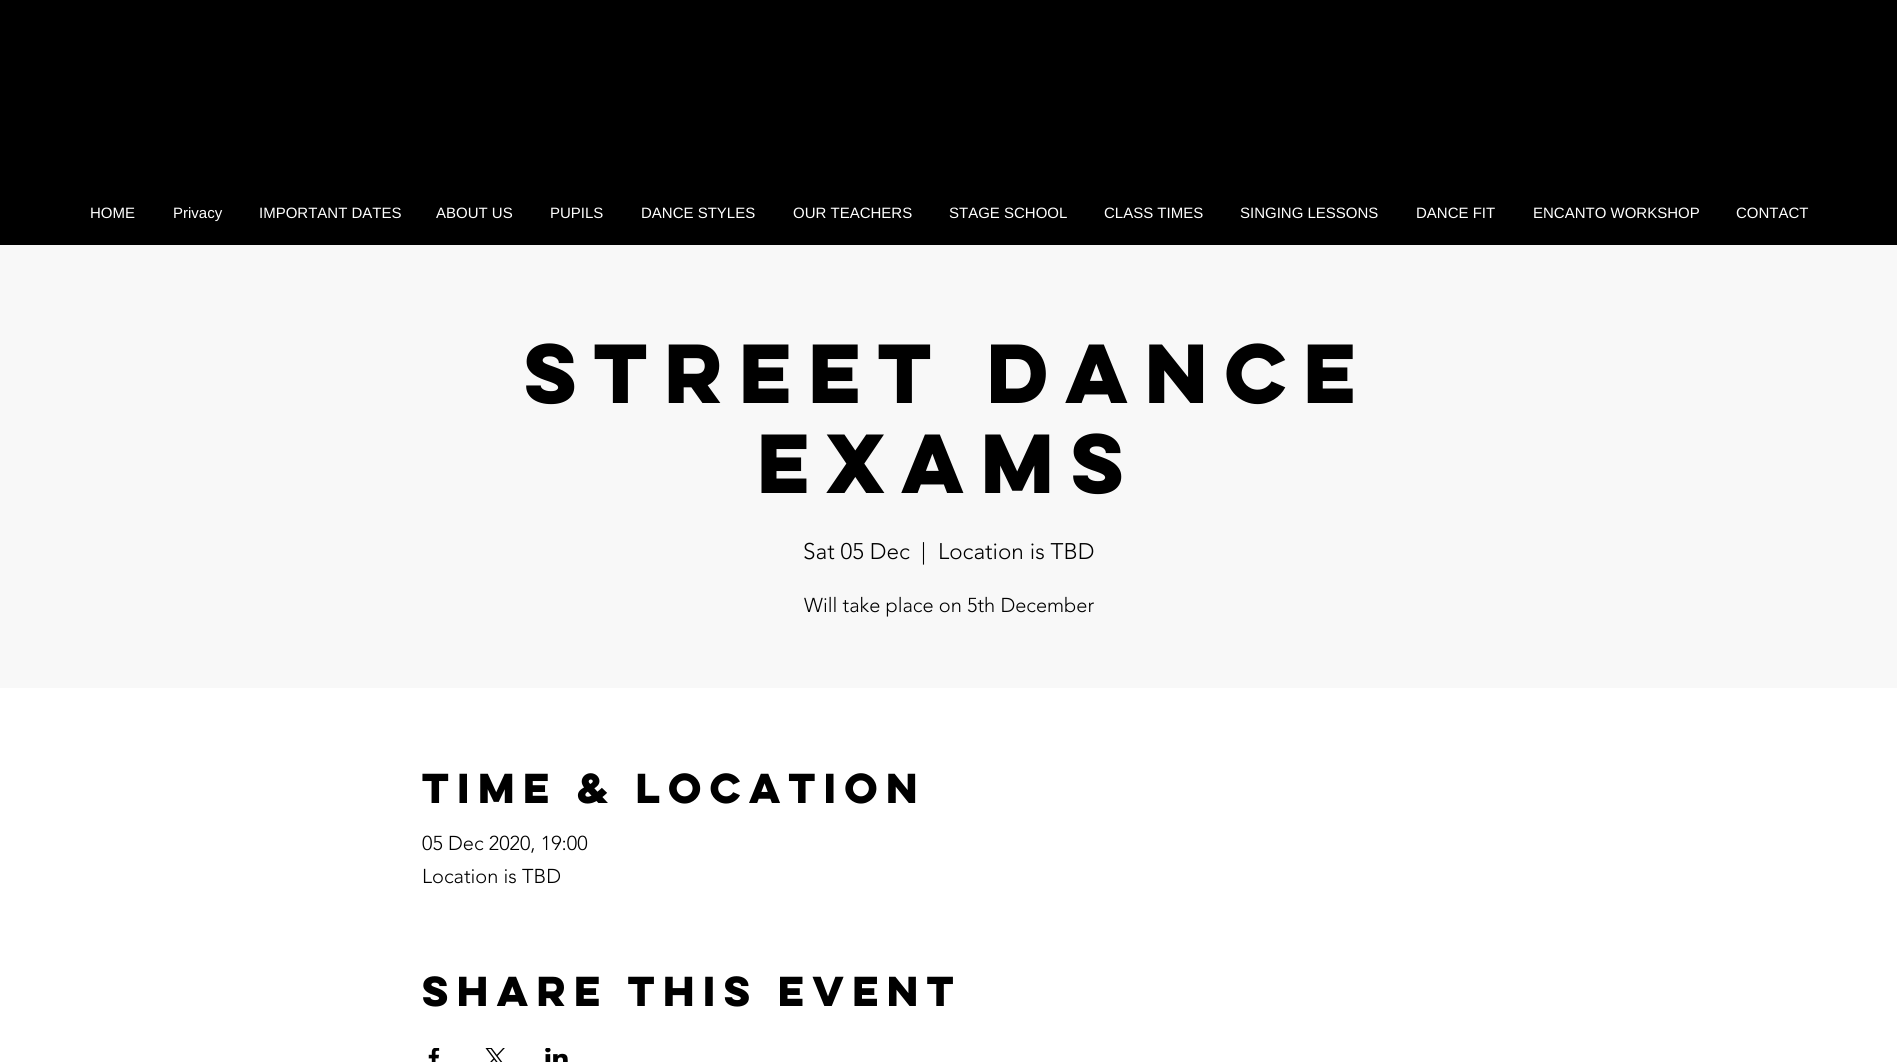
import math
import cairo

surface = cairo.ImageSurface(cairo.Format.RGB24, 1897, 1062)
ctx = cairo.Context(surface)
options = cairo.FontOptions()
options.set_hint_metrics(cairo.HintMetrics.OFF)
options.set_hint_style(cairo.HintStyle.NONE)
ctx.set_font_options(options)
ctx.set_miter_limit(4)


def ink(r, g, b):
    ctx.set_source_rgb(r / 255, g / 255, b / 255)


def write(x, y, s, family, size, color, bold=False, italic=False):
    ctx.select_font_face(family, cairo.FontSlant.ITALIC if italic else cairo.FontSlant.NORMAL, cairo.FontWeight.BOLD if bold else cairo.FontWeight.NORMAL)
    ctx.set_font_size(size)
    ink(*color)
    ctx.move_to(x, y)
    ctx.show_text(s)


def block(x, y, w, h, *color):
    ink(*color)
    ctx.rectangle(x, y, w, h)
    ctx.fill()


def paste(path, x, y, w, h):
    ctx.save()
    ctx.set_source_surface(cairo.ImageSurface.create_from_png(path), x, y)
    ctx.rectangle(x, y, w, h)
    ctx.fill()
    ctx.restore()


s1 = dict(family="Liberation Sans", size=15, color=(255, 255, 255))
s2 = dict(family="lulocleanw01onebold", size=75, color=(0, 0, 0), bold=True)
s3 = dict(family="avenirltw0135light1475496 Light", size=22.5, color=(0, 0, 0))
s4 = dict(family="avenirltw0135light1475496 Light", size=20, color=(0, 0, 0))
s5 = dict(family="lulocleanw01onebold", size=37.5, color=(0, 0, 0), bold=True)

ink(0, 0, 0)
ctx.paint()
write(90, 218, "HOME", **s1)
write(173, 218, "Privacy", **s1)
write(259, 218, "IMPORTANT DATES", **s1)
write(436, 218, "ABOUT US", **s1)
write(550, 218, "PUPILS", **s1)
write(641, 218, "DANCE STYLES", **s1)
write(793, 218, "OUR TEACHERS", **s1)
write(949, 218, "STAGE SCHOOL", **s1)
write(1104, 218, "CLASS TIMES", **s1)
write(1240, 218, "SINGING LESSONS", **s1)
write(1416, 218, "DANCE FIT", **s1)
write(1533, 218, "ENCANTO WORKSHOP", **s1)
write(1736, 218, "CONTACT", **s1)
block(0, 245, 1897, 443, 248, 248, 248)
write(524, 403, "Street Dance", **s2)
write(757, 493, "Exams", **s2)
write(803, 559, "Sat 05 Dec", **s3)
write(921, 559, "|", **s3)
write(938, 559, "Location is TBD", **s3)
write(804, 612, "Will take place on 5th December", **s4)
block(0, 688, 1897, 374, 255, 255, 255)
write(422, 803, "Time & Location", **s5)
write(422, 850, "05 Dec 2020, 19:00", **s4)
write(422, 883, "Location is TBD", **s4)
write(422, 1006, "Share this event", **s5)
paste("pic1.png", 428, 1048, 12, 14)
paste("pic2.png", 485, 1048, 20, 14)
paste("pic3.png", 545, 1048, 23, 14)
surface.write_to_png("screenshot.png")
